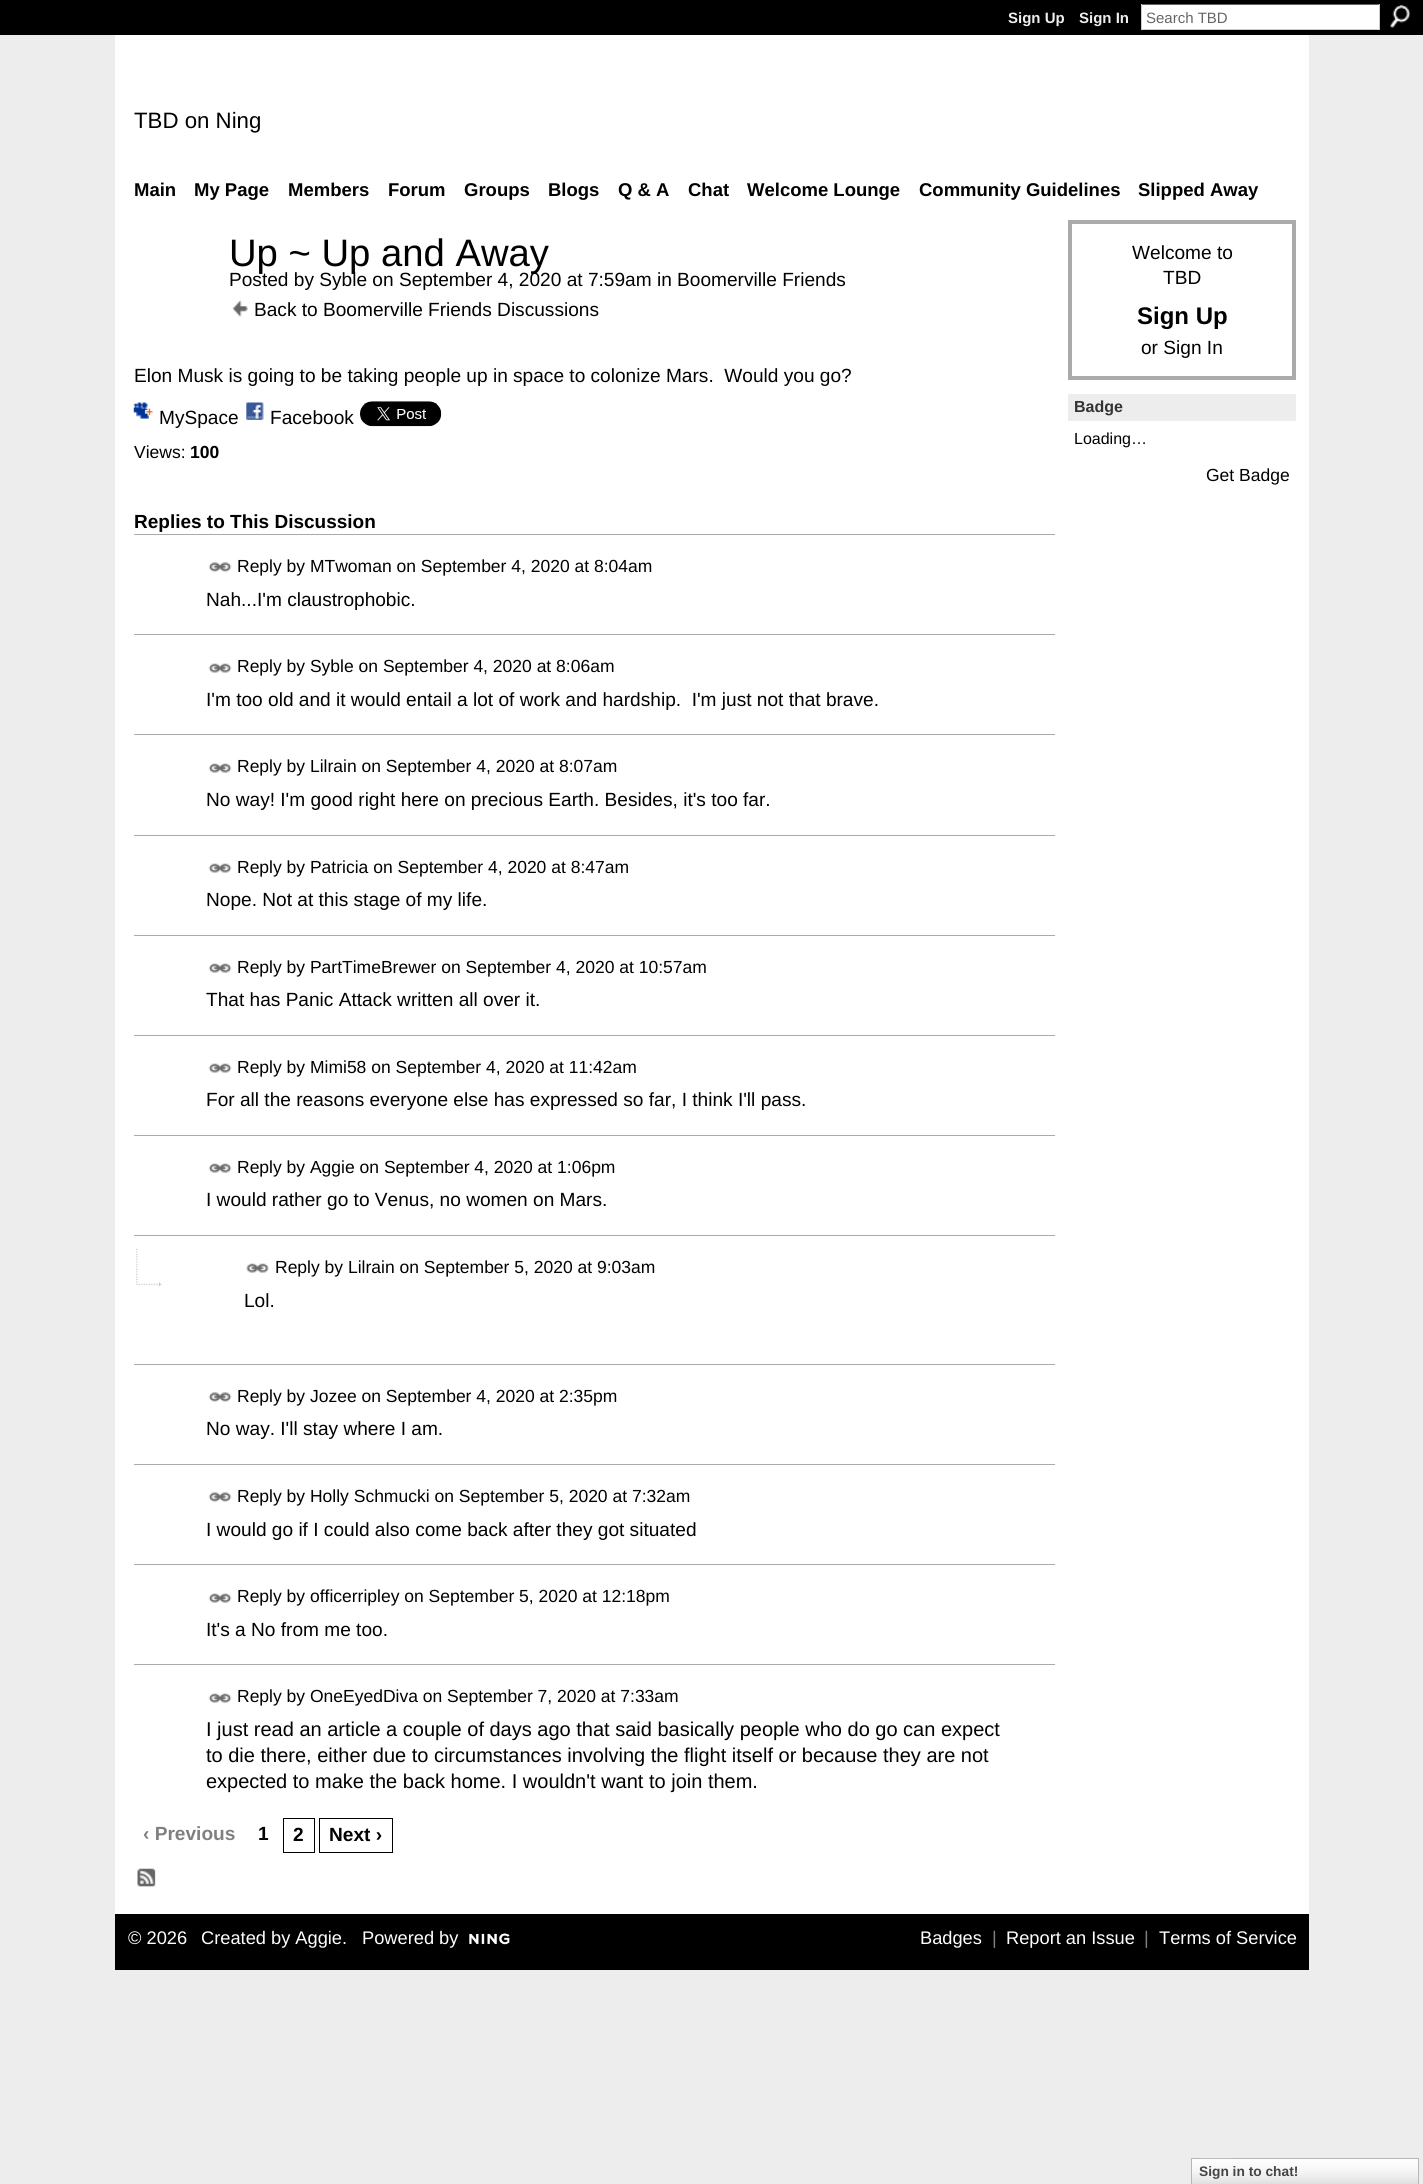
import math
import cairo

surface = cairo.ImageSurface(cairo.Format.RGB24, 1423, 2184)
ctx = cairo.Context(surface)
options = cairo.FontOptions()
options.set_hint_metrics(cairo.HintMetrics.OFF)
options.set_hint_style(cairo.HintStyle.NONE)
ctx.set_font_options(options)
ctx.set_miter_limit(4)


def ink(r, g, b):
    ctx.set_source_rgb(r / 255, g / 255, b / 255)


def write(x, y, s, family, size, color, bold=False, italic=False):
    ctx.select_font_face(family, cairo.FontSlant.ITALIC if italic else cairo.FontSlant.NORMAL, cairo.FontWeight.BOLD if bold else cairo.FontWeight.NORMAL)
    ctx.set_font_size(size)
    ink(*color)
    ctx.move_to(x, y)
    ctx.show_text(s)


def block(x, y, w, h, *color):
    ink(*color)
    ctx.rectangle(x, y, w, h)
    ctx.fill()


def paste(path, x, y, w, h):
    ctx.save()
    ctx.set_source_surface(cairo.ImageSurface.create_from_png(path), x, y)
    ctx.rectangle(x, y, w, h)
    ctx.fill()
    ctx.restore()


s1 = dict(family="Liberation Sans", size=15, color=(238, 238, 238), bold=True)
s2 = dict(family="Liberation Sans", size=15, color=(102, 102, 102))
s3 = dict(family="Liberation Sans", size=22.25, color=(0, 0, 0))
s4 = dict(family="Liberation Sans", size=18.5, color=(0, 0, 0), bold=True)
s5 = dict(family="Liberation Sans", size=38.25, color=(0, 0, 0))
s6 = dict(family="Liberation Sans", size=19.1, color=(0, 0, 0))
s7 = dict(family="Liberation Sans", size=17.5, color=(0, 0, 0))
s8 = dict(family="Liberation Sans", size=17.5, color=(0, 0, 0), bold=True)
s9 = dict(family="Liberation Sans", size=19, color=(0, 0, 0), bold=True)
s10 = dict(family="Liberation Sans", size=20, color=(0, 0, 0))
s11 = dict(family="Liberation Sans", size=19.1, color=(128, 128, 128), bold=True)
s12 = dict(family="Liberation Sans", size=19.1, color=(0, 0, 0), bold=True)
s13 = dict(family="Liberation Sans", size=24, color=(0, 0, 0), bold=True)
s14 = dict(family="Liberation Sans", size=16, color=(51, 51, 51), bold=True)
s15 = dict(family="Liberation Sans", size=16, color=(0, 0, 0))
s16 = dict(family="Liberation Sans", size=18.25, color=(255, 255, 255))
s17 = dict(family="Liberation Sans", size=18.25, color=(128, 128, 128))
s18 = dict(family="Liberation Sans", size=13.75, color=(69, 69, 69), bold=True)

ink(237, 237, 237)
ctx.paint()
block(0, 0, 1423, 35, 0, 0, 0)
write(1008, 23, "Sign Up", **s1)
write(1079, 23, "Sign In", **s1)
block(1142, 5, 237, 24, 255, 255, 255)
block(1141, 4, 239, 1, 102, 102, 102)
block(1379, 4, 1, 26, 204, 204, 204)
block(1141, 29, 239, 1, 204, 204, 204)
block(1141, 4, 1, 26, 204, 204, 204)
write(1146, 23, "Search TBD", **s2)
paste("pic1.png", 1390, 5, 20, 23)
block(115, 35, 1194, 1879, 255, 255, 255)
write(134, 128, "TBD on Ning", **s3)
write(134, 196, "Main", **s4)
write(194, 196, "My Page", **s4)
write(288, 196, "Members", **s4)
write(388, 196, "Forum", **s4)
write(464, 196, "Groups", **s4)
write(548, 196, "Blogs", **s4)
write(618, 196, "Q & A", **s4)
write(688, 196, "Chat", **s4)
write(747, 196, "Welcome Lounge", **s4)
write(919, 196, "Community Guidelines", **s4)
write(1138, 196, "Slipped Away", **s4)
write(229, 266, "Up ~ Up and Away", **s5)
write(229, 286, "Posted by Syble on September 4, 2020 at 7:59am in Boomerville Friends", **s6)
paste("pic2.png", 232, 300, 16, 17)
write(254, 316, "Back to Boomerville Friends Discussions", **s6)
write(134, 382, "Elon Musk is going to be taking people up in space to colonize Mars.  Would you go?", **s6)
paste("pic3.png", 133, 402, 20, 17)
write(159, 424, "MySpace", **s6)
paste("pic4.png", 246, 402, 18, 18)
write(270, 424, "Facebook", **s6)
paste("pic5.png", 360, 401, 82, 26)
write(134, 458, "Views:", **s7)
write(190, 458, "100", **s8)
write(134, 528, "Replies to This Discussion", **s9)
block(134, 534, 921, 1, 170, 170, 170)
paste("pic6.png", 208, 562, 24, 10)
write(237, 572, "Reply by MTwoman on September 4, 2020 at 8:04am", **s7)
write(206, 606, "Nah...I'm claustrophobic.", **s6)
block(134, 634, 921, 1, 170, 170, 170)
paste("pic7.png", 208, 663, 24, 10)
write(237, 672, "Reply by Syble on September 4, 2020 at 8:06am", **s7)
write(206, 706, "I'm too old and it would entail a lot of work and hardship.  I'm just not that brave.", **s6)
block(134, 734, 921, 1, 170, 170, 170)
paste("pic7.png", 208, 763, 24, 10)
write(237, 772, "Reply by Lilrain on September 4, 2020 at 8:07am", **s7)
write(206, 806, "No way! I'm good right here on precious Earth. Besides, it's too far.", **s6)
block(134, 835, 921, 1, 170, 170, 170)
paste("pic7.png", 208, 863, 24, 10)
write(237, 873, "Reply by Patricia on September 4, 2020 at 8:47am", **s7)
write(206, 906, "Nope. Not at this stage of my life.", **s6)
block(134, 935, 921, 1, 170, 170, 170)
paste("pic7.png", 208, 963, 24, 10)
write(237, 973, "Reply by PartTimeBrewer on September 4, 2020 at 10:57am", **s7)
write(206, 1006, "That has Panic Attack written all over it.", **s6)
block(134, 1035, 921, 1, 170, 170, 170)
paste("pic7.png", 208, 1063, 24, 10)
write(237, 1073, "Reply by Mimi58 on September 4, 2020 at 11:42am", **s7)
write(206, 1106, "For all the reasons everyone else has expressed so far, I think I'll pass.", **s6)
block(134, 1135, 921, 1, 170, 170, 170)
paste("pic7.png", 208, 1163, 24, 10)
write(237, 1173, "Reply by Aggie on September 4, 2020 at 1:06pm", **s7)
write(206, 1206, "I would rather go to Venus, no women on Mars.", **s6)
paste("pic8.png", 136, 1248, 26, 39)
block(134, 1235, 921, 1, 170, 170, 170)
paste("pic9.png", 246, 1263, 23, 10)
write(275, 1273, "Reply by Lilrain on September 5, 2020 at 9:03am", **s7)
write(244, 1307, "Lol.", **s6)
block(134, 1364, 921, 1, 170, 170, 170)
paste("pic6.png", 208, 1392, 24, 10)
write(237, 1402, "Reply by Jozee on September 4, 2020 at 2:35pm", **s7)
write(206, 1435, "No way. I'll stay where I am.", **s6)
block(134, 1464, 921, 1, 170, 170, 170)
paste("pic6.png", 208, 1492, 24, 10)
write(237, 1502, "Reply by Holly Schmucki on September 5, 2020 at 7:32am", **s7)
write(206, 1536, "I would go if I could also come back after they got situated", **s6)
block(134, 1564, 921, 1, 170, 170, 170)
paste("pic7.png", 208, 1593, 24, 10)
write(237, 1602, "Reply by officerripley on September 5, 2020 at 12:18pm", **s7)
write(206, 1636, "It's a No from me too.", **s6)
block(134, 1664, 921, 1, 170, 170, 170)
paste("pic7.png", 208, 1693, 24, 10)
write(237, 1702, "Reply by OneEyedDiva on September 7, 2020 at 7:33am", **s7)
write(206, 1736, "I just read an article a couple of days ago that said basically people who do go can expect", **s10)
write(206, 1762, "to die there, either due to circumstances involving the flight itself or because they are not", **s10)
write(206, 1788, "expected to make the back home. I wouldn't want to join them.", **s10)
write(143, 1840, "‹ Previous", **s11)
write(258, 1840, "1", **s12)
ctx.rectangle(283.5, 1818.5, 31, 34)
ctx.set_line_width(1)
ctx.stroke()
write(293, 1841, "2", **s12)
ctx.rectangle(319.5, 1818.5, 73, 34)
ctx.stroke()
write(329, 1841, "Next ›", **s12)
paste("pic10.png", 137, 1868, 19, 19)
ctx.rectangle(1070, 222, 224, 156)
ink(170, 170, 170)
ctx.set_line_width(4)
ctx.stroke()
write(1132, 259, "Welcome to", **s6)
write(1163, 284, "TBD", **s6)
write(1137, 324, "Sign Up", **s13)
write(1141, 354, "or Sign In", **s6)
block(1068, 394, 228, 27, 237, 237, 237)
write(1074, 412, "Badge", **s14)
write(1074, 444, "Loading…", **s15)
write(1206, 481, "Get Badge", **s7)
block(115, 1914, 1194, 56, 0, 0, 0)
write(128, 1944, "© 2026", **s16)
write(201, 1944, "Created by Aggie.", **s16)
write(362, 1944, "Powered by", **s16)
paste("pic11.png", 469, 1933, 41, 12)
write(920, 1944, "Badges", **s16)
write(992, 1944, "|", **s17)
write(1006, 1944, "Report an Issue", **s16)
write(1144, 1944, "|", **s17)
write(1159, 1944, "Terms of Service", **s16)
paste("pic12.png", 1192, 2159, 226, 25)
ctx.rectangle(1191.5, 2158.5, 227, 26)
ink(183, 183, 183)
ctx.set_line_width(1)
ctx.stroke()
block(1199, 2158, 33, 1, 187, 187, 187)
write(1199, 2176, "Sign in to chat!", **s18)
surface.write_to_png("screenshot.png")
